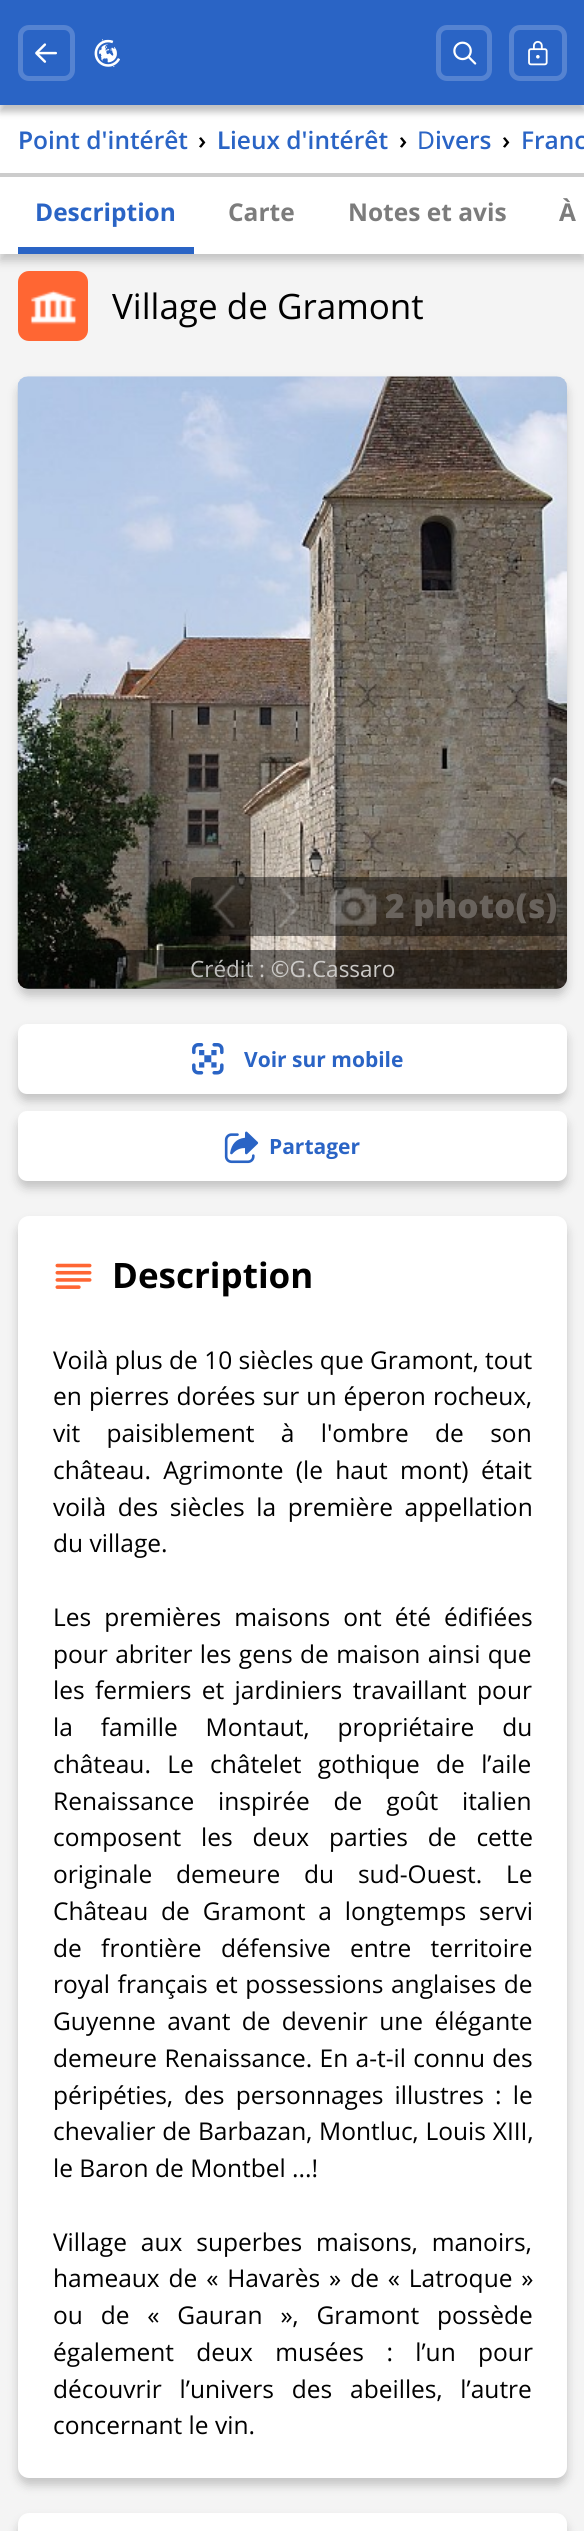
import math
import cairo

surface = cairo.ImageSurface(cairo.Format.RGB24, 584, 2531)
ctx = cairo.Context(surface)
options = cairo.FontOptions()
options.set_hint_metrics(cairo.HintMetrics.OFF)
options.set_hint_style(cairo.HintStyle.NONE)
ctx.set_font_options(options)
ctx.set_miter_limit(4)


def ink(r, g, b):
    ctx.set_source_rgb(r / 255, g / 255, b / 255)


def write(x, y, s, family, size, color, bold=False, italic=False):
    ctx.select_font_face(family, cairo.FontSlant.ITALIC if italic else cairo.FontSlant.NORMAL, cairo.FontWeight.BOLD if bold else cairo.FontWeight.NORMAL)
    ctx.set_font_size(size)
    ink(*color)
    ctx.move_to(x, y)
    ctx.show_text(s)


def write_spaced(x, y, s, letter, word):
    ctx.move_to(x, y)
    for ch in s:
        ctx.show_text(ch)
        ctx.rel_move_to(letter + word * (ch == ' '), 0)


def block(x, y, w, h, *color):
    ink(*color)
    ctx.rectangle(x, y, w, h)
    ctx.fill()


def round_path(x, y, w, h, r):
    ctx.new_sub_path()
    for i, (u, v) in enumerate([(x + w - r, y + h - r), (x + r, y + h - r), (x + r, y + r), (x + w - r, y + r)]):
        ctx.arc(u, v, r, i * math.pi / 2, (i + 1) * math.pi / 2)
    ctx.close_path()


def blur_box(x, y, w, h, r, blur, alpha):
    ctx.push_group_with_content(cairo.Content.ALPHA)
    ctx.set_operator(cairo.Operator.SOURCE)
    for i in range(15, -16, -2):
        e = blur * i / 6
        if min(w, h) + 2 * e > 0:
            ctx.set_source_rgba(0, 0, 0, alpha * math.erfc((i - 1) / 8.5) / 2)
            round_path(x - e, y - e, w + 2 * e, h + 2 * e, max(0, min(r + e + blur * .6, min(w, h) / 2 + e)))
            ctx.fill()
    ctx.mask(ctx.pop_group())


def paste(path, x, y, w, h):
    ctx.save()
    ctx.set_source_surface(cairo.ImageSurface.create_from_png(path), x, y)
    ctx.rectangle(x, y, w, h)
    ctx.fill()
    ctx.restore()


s1 = dict(family="Noto Sans SemiBold", size=24.5, color=(42, 100, 197))
s2 = dict(family="Open Sans SemiBold", size=24.5, color=(42, 100, 197))
s3 = dict(family="Open Sans SemiBold", size=24.5, color=(0, 0, 0))
s4 = dict(family="Noto Sans", size=24.5, color=(42, 100, 197))
s5 = dict(family="Noto Sans Medium", size=24.5, color=(42, 100, 197))
s6 = dict(family="Open Sans", size=24.5, color=(42, 100, 197), bold=True)
s7 = dict(family="Open Sans", size=24.5, color=(124, 124, 124), bold=True)
s8 = dict(family="Open Sans", size=35, color=(0, 0, 0))
s9 = dict(family="Open Sans ExtraBold", size=33.5, color=(105, 99, 93))
s10 = dict(family="Open Sans", size=22.5, color=(190, 190, 188))
s11 = dict(family="Open Sans", size=22.5, color=(203, 201, 199))
s12 = dict(family="Open Sans", size=21, color=(42, 100, 197), bold=True)
s13 = dict(family="Open Sans", size=35, color=(0, 0, 0), bold=True)
s14 = dict(family="Open Sans", size=24.5, color=(0, 0, 0))

ink(244, 244, 244)
ctx.paint()
ink(255, 102, 51)
round_path(18, 271, 70, 70, 11)
ctx.fill()
ink(0, 0, 0)
blur_box(0, 112, 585, 149, 0, 5, 0.2)
block(0, 105, 584, 149, 255, 255, 255)
ink(0, 0, 0)
blur_box(0, 7, 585, 105, 0, 3.5, 0.25)
block(0, 0, 584, 105, 42, 100, 197)
round_path(20.5, 27.5, 52, 51, 8.5)
ink(85, 131, 209)
ctx.set_line_width(5)
ctx.stroke()
paste("pic1.png", 35, 43, 22, 20)
paste("pic2.png", 94, 39, 26, 28)
round_path(438.5, 27.5, 51, 51, 8.5)
ctx.stroke()
paste("pic3.png", 453, 41, 24, 24)
round_path(511.5, 27.5, 53, 51, 8.5)
ctx.stroke()
paste("pic4.png", 528, 40, 20, 26)
block(0, 173, 584, 4, 204, 204, 204)
write(18, 149, "P", **s1)
write(33, 149, "oint d'intérêt", **s2)
write(198, 149, "›", **s3)
write(217, 149, "L", **s1)
write(230, 149, "ieux d'intérêt", **s2)
write(399, 149, "›", **s3)
write(417, 149, "D", **s4)
write(435, 149, "ivers", **s2)
write(502, 149, "›", **s3)
write(521, 149, "F", **s5)
write(534, 149, "ranc", **s2)
block(18, 247, 176, 7, 42, 100, 197)
write(35, 221, "Description", **s6)
write(228, 221, "Carte", **s7)
write(348, 221, "Notes et avis", **s7)
write(559, 221, "À", **s7)
paste("pic5.png", 30, 290, 47, 35)
write(112, 319, "Village de Gramont", **s8)
ink(0, 0, 0)
blur_box(18, 383, 549, 613, 11, 5, 0.2)
paste("pic6.png", 17, 376, 550, 613)
ctx.set_source_rgba(0, 0, 0, 0.45)
ctx.new_path()
ctx.move_to(196, 877)
ctx.line_to(567, 877)
ctx.line_to(567, 936)
ctx.line_to(196, 936)
ctx.curve_to(193, 936, 191, 934, 191, 931)
ctx.line_to(191, 882)
ctx.curve_to(191, 879, 193, 877, 196, 877)
ctx.close_path()
ctx.fill()
paste("pic7.png", 213, 885, 22, 43)
paste("pic8.png", 278, 885, 22, 43)
paste("pic9.png", 329, 887, 48, 39)
write(385, 918, "2 photo(s)", **s9)
ctx.set_source_rgba(0, 0, 0, 0.49)
ctx.new_path()
ctx.move_to(18, 950)
ctx.line_to(567, 950)
ctx.line_to(567, 978)
ctx.curve_to(567, 984, 562, 989, 556, 989)
ctx.line_to(29, 989)
ctx.curve_to(23, 989, 18, 984, 18, 978)
ctx.close_path()
ctx.fill()
write(190, 977, "Crédit", **s10)
write(259, 977, ": ©G.Cassaro", **s11)
ink(0, 0, 0)
blur_box(18, 1031, 549, 70, 9, 5, 0.2)
ink(255, 255, 255)
round_path(18, 1024, 549, 70, 9)
ctx.fill()
paste("pic10.png", 192, 1043, 32, 32)
write(244, 1067, "Voir sur mobile", **s12)
ink(0, 0, 0)
blur_box(18, 1118, 549, 70, 9, 5, 0.2)
ink(255, 255, 255)
round_path(18, 1111, 549, 70, 9)
ctx.fill()
paste("pic11.png", 224, 1131, 35, 33)
write(269, 1154, "Partager", **s12)
ink(0, 0, 0)
blur_box(18, 1223, 549, 1262, 11, 5, 0.2)
ink(255, 255, 255)
round_path(18, 1216, 549, 1262, 11)
ctx.fill()
paste("pic12.png", 55, 1263, 37, 26)
write(112, 1288, "Description", **s13)
write(53, 1369, "Voilà plus de 10 siècles que Gramont, tout", **s14)
write_spaced(53, 1405, "en pierres dorées sur un éperon rocheux,", 0, 0.75)
write_spaced(53, 1442, "vit paisiblement à l'ombre de son", 0, 20)
write_spaced(53, 1479, "château. Agrimonte (le haut mont) était", 0, 6)
write_spaced(53, 1516, "voilà des siècles la première appellation", 0, 5.25)
write(53, 1552, "du village.", **s14)
write_spaced(53, 1626, "Les premières maisons ont été édifiées", 0, 6.75)
write_spaced(53, 1663, "pour abriter les gens de maison ainsi que", 0, 1)
write_spaced(53, 1699, "les fermiers et jardiniers travaillant pour", 0, 4)
write_spaced(53, 1736, "la famille Montaut, propriétaire du", 0, 21.5)
write_spaced(53, 1773, "château. Le châtelet gothique de l’aile", 0, 10)
write_spaced(53, 1810, "Renaissance inspirée de goût italien", 0, 17.5)
write_spaced(53, 1846, "composent les deux parties de cette", 0, 13.5)
write_spaced(53, 1883, "originale demeure du sud-Ouest.", 0, 17.5)
write(506, 1883, "Le", **s14)
write_spaced(53, 1920, "Château de Gramont a longtemps servi", 0, 6.5)
write_spaced(53, 1957, "de frontière défensive entre territoire", 0, 13)
write_spaced(53, 1993, "royal français et possessions anglaises de", 0, 1.25)
write_spaced(53, 2030, "Guyenne avant de devenir une élégante", 0, 5)
write_spaced(53, 2067, "demeure Renaissance. En a-t-il connu des", 0, 1)
write_spaced(53, 2104, "péripéties, des personnages illustres : le", 0, 4.75)
write_spaced(53, 2140, "chevalier de Barbazan, Montluc, Louis XIII,", 0, 0.5)
write(53, 2177, "le Baron de Montbel ...!", **s14)
write_spaced(53, 2251, "Village aux superbes maisons, manoirs,", 0, 7.5)
write_spaced(53, 2287, "hameaux de « Havarès » de « Latroque »", 0, 2.5)
write_spaced(53, 2324, "ou de « Gauran », Gramont possède", 0, 11.5)
write_spaced(53, 2361, "également deux musées : l’un pour", 0, 16)
write_spaced(53, 2398, "découvrir l’univers des abeilles, l’autre", 0, 11.5)
write(53, 2434, "concernant le vin.", **s14)
ink(0, 0, 0)
blur_box(18, 2520, 549, 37, 11, 5, 0.2)
ink(255, 255, 255)
ctx.new_path()
ctx.move_to(29, 2513)
ctx.line_to(556, 2513)
ctx.curve_to(562, 2513, 567, 2518, 567, 2524)
ctx.line_to(567, 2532)
ctx.line_to(18, 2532)
ctx.line_to(18, 2524)
ctx.curve_to(18, 2518, 23, 2513, 29, 2513)
ctx.close_path()
ctx.fill()
surface.write_to_png("screenshot.png")
